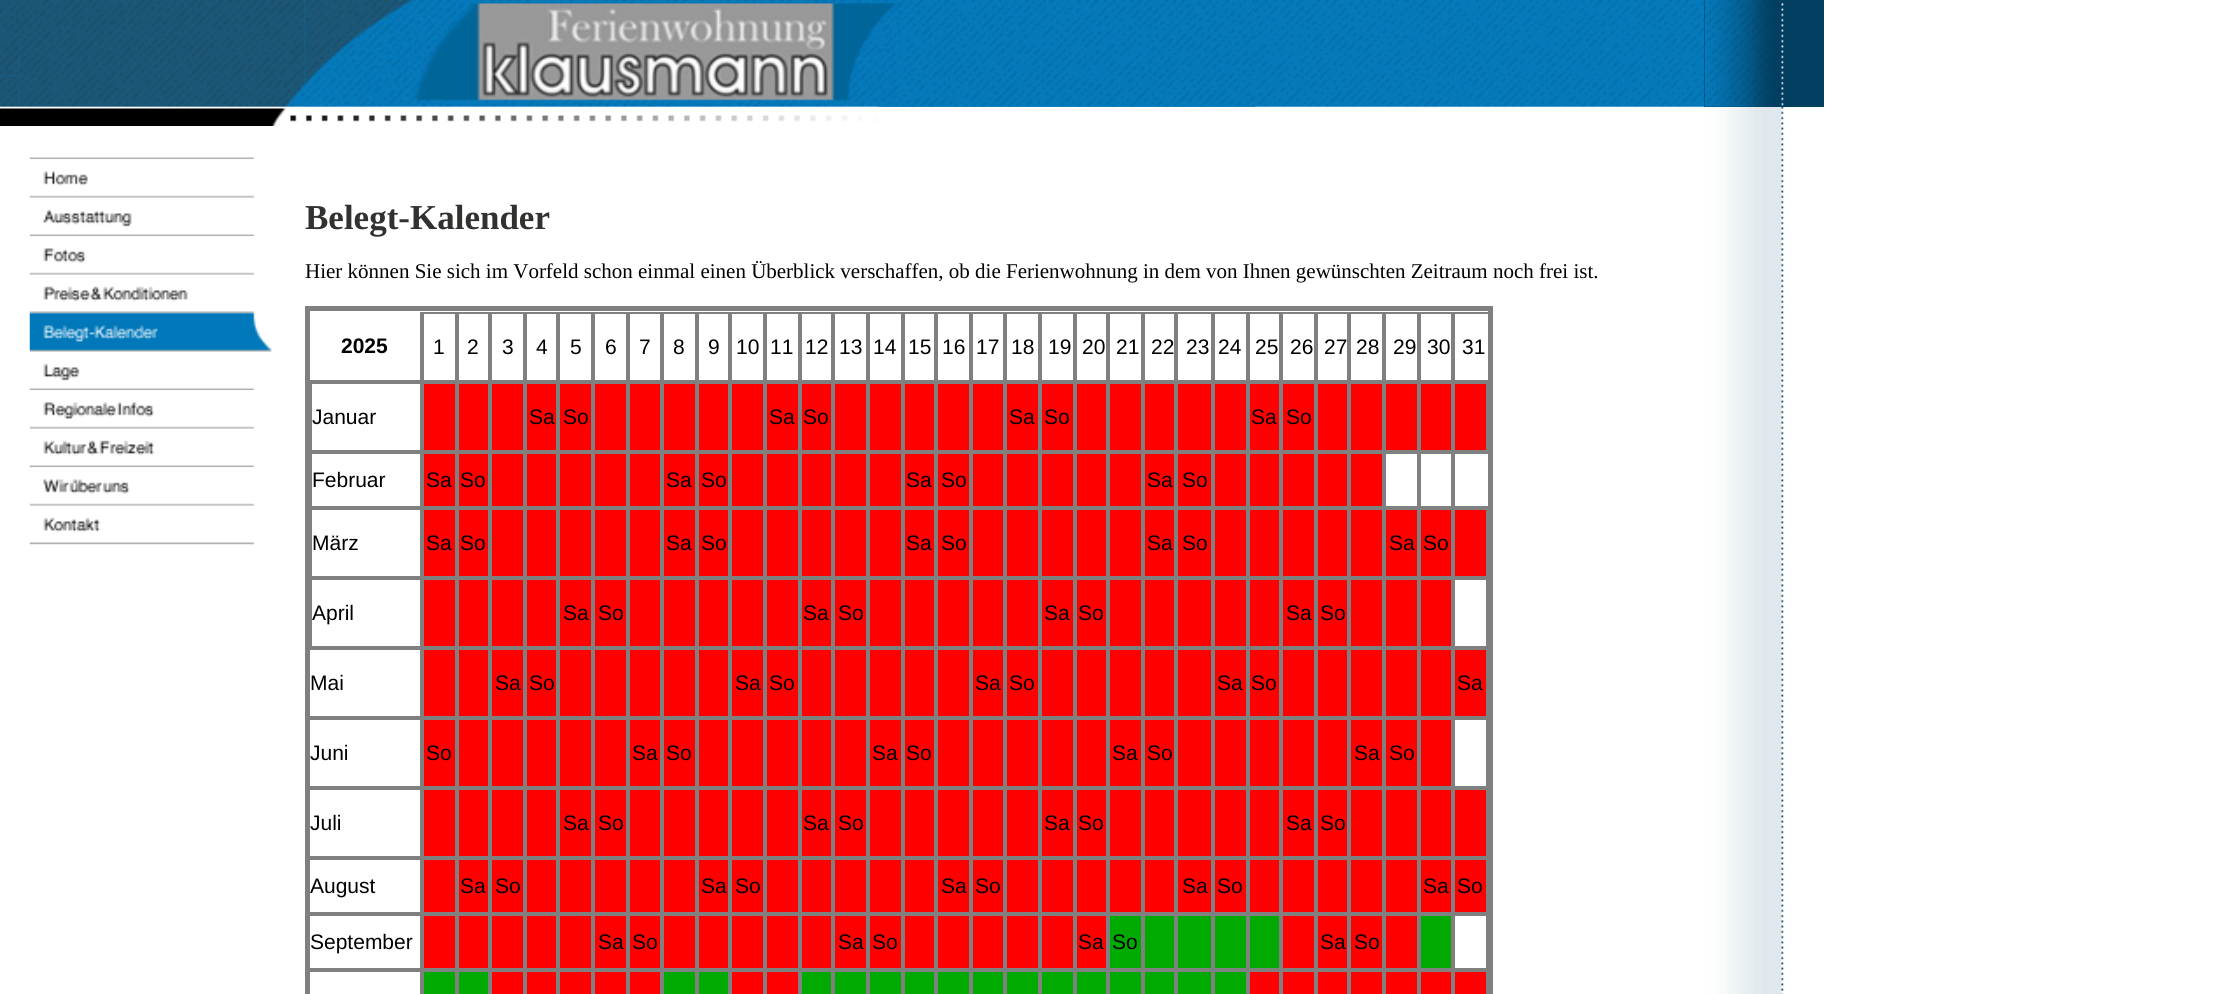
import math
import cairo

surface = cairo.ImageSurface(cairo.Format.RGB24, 2235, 994)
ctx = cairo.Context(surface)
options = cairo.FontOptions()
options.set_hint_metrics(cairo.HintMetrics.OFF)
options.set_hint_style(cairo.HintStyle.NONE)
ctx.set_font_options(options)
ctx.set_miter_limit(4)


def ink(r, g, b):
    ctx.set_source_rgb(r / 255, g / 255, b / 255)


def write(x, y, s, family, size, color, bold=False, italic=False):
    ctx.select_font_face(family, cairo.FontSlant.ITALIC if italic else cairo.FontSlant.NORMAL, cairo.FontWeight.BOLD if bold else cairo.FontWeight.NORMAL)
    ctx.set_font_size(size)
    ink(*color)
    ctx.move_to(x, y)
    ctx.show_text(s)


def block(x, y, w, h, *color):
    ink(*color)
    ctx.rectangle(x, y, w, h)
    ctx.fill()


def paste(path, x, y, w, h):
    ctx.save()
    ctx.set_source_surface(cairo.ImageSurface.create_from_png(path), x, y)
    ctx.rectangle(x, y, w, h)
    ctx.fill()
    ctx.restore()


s1 = dict(family="Liberation Serif", size=35, color=(50, 49, 47), bold=True)
s2 = dict(family="Liberation Serif", size=21, color=(0, 0, 0))
s3 = dict(family="Liberation Sans", size=21, color=(0, 0, 0), bold=True)
s4 = dict(family="Liberation Sans", size=21, color=(0, 0, 0))

ink(255, 255, 255)
ctx.paint()
paste("pic1.png", 0, 0, 1704, 107)
paste("pic2.png", 0, 0, 305, 42)
paste("pic3.png", 304, 0, 66, 107)
paste("pic4.png", 369, 0, 534, 107)
paste("pic5.png", 903, 0, 352, 107)
paste("pic6.png", 0, 42, 20, 34)
paste("pic7.png", 19, 42, 286, 65)
paste("pic8.png", 0, 75, 20, 32)
paste("pic9.png", 0, 106, 305, 20)
paste("pic10.png", 304, 106, 575, 16)
paste("pic11.png", 29, 157, 226, 3)
paste("pic12.png", 29, 159, 226, 39)
paste("pic13.png", 29, 197, 226, 40)
paste("pic14.png", 29, 236, 226, 39)
paste("pic15.png", 29, 274, 226, 40)
paste("pic16.png", 29, 313, 243, 39)
paste("pic17.png", 29, 351, 242, 40)
paste("pic18.png", 29, 390, 226, 39)
paste("pic19.png", 29, 428, 226, 40)
paste("pic20.png", 29, 467, 226, 39)
paste("pic21.png", 29, 505, 226, 40)
write(305, 229, "Belegt-Kalender", **s1)
write(305, 278, "Hier können Sie sich im Vorfeld schon einmal einen Überblick verschaffen, ob die Ferienwohnung in dem von Ihnen gewünschten Zeitraum noch frei ist.", **s2)
ctx.rectangle(307.5, 308.5, 1183, 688)
ink(128, 128, 128)
ctx.set_line_width(5)
ctx.stroke()
block(420, 312, 2, 70, 128, 128, 128)
block(310, 380, 112, 2, 128, 128, 128)
write(341, 353, "2025", **s3)
ctx.rectangle(423, 313, 33, 68)
ink(128, 128, 128)
ctx.set_line_width(2)
ctx.stroke()
write(433, 354, "1", **s4)
ctx.rectangle(458, 313, 31, 68)
ink(128, 128, 128)
ctx.stroke()
write(467, 354, "2", **s4)
ctx.rectangle(491, 313, 33, 68)
ink(128, 128, 128)
ctx.stroke()
write(502, 354, "3", **s4)
ctx.rectangle(526, 313, 31, 68)
ink(128, 128, 128)
ctx.stroke()
write(536, 354, "4", **s4)
ctx.rectangle(559, 313, 33, 68)
ink(128, 128, 128)
ctx.stroke()
write(570, 354, "5", **s4)
ctx.rectangle(594, 313, 33, 68)
ink(128, 128, 128)
ctx.stroke()
write(605, 354, "6", **s4)
ctx.rectangle(629, 313, 32, 68)
ink(128, 128, 128)
ctx.stroke()
write(639, 354, "7", **s4)
ctx.rectangle(663, 313, 33, 68)
ink(128, 128, 128)
ctx.stroke()
write(673, 354, "8", **s4)
ctx.rectangle(698, 313, 31, 68)
ink(128, 128, 128)
ctx.stroke()
write(708, 354, "9", **s4)
ctx.rectangle(731, 313, 33, 68)
ink(128, 128, 128)
ctx.stroke()
write(736, 354, "10", **s4)
ctx.rectangle(766, 313, 33, 68)
ink(128, 128, 128)
ctx.stroke()
write(770, 354, "11", **s4)
ctx.rectangle(801, 313, 31, 68)
ink(128, 128, 128)
ctx.stroke()
write(805, 354, "12", **s4)
ctx.rectangle(834, 313, 33, 68)
ink(128, 128, 128)
ctx.stroke()
write(839, 354, "13", **s4)
ctx.rectangle(869, 313, 33, 68)
ink(128, 128, 128)
ctx.stroke()
write(873, 354, "14", **s4)
ctx.rectangle(904, 313, 31, 68)
ink(128, 128, 128)
ctx.stroke()
write(908, 354, "15", **s4)
ctx.rectangle(937, 313, 33, 68)
ink(128, 128, 128)
ctx.stroke()
write(942, 354, "16", **s4)
ctx.rectangle(972, 313, 32, 68)
ink(128, 128, 128)
ctx.stroke()
write(976, 354, "17", **s4)
ctx.rectangle(1006, 313, 33, 68)
ink(128, 128, 128)
ctx.stroke()
write(1011, 354, "18", **s4)
ctx.rectangle(1041, 313, 33, 68)
ink(128, 128, 128)
ctx.stroke()
write(1048, 354, "19", **s4)
ctx.rectangle(1076, 313, 31, 68)
ink(128, 128, 128)
ctx.stroke()
write(1082, 354, "20", **s4)
ctx.rectangle(1109, 313, 33, 68)
ink(128, 128, 128)
ctx.stroke()
write(1116, 354, "21", **s4)
ctx.rectangle(1144, 313, 31, 68)
ink(128, 128, 128)
ctx.stroke()
write(1151, 354, "22", **s4)
ctx.rectangle(1177, 313, 35, 68)
ink(128, 128, 128)
ctx.stroke()
write(1186, 354, "23", **s4)
ctx.rectangle(1214, 313, 33, 68)
ink(128, 128, 128)
ctx.stroke()
write(1218, 354, "24", **s4)
ctx.rectangle(1249, 313, 31, 68)
ink(128, 128, 128)
ctx.stroke()
write(1255, 354, "25", **s4)
ctx.rectangle(1282, 313, 33, 68)
ink(128, 128, 128)
ctx.stroke()
write(1290, 354, "26", **s4)
ctx.rectangle(1317, 313, 31, 68)
ink(128, 128, 128)
ctx.stroke()
write(1324, 354, "27", **s4)
ctx.rectangle(1350, 313, 33, 68)
ink(128, 128, 128)
ctx.stroke()
write(1356, 354, "28", **s4)
ctx.rectangle(1385, 313, 33, 68)
ink(128, 128, 128)
ctx.stroke()
write(1393, 354, "29", **s4)
ctx.rectangle(1420, 313, 32, 68)
ink(128, 128, 128)
ctx.stroke()
write(1427, 354, "30", **s4)
block(1453, 312, 35, 2, 128, 128, 128)
block(1453, 380, 35, 2, 128, 128, 128)
block(1453, 312, 2, 70, 128, 128, 128)
write(1462, 354, "31", **s4)
ctx.rectangle(311, 383, 110, 68)
ink(128, 128, 128)
ctx.stroke()
write(312, 424, "Januar", **s4)
ink(255, 0, 0)
ctx.rectangle(423, 383, 33, 68)
ctx.fill_preserve()
ink(128, 128, 128)
ctx.stroke()
ink(255, 0, 0)
ctx.rectangle(458, 383, 31, 68)
ctx.fill_preserve()
ink(128, 128, 128)
ctx.stroke()
ink(255, 0, 0)
ctx.rectangle(491, 383, 33, 68)
ctx.fill_preserve()
ink(128, 128, 128)
ctx.stroke()
ink(255, 0, 0)
ctx.rectangle(526, 383, 31, 68)
ctx.fill_preserve()
ink(128, 128, 128)
ctx.stroke()
write(529, 424, "Sa", **s4)
ink(255, 0, 0)
ctx.rectangle(559, 383, 33, 68)
ctx.fill_preserve()
ink(128, 128, 128)
ctx.stroke()
write(563, 424, "So", **s4)
ink(255, 0, 0)
ctx.rectangle(594, 383, 33, 68)
ctx.fill_preserve()
ink(128, 128, 128)
ctx.stroke()
ink(255, 0, 0)
ctx.rectangle(629, 383, 32, 68)
ctx.fill_preserve()
ink(128, 128, 128)
ctx.stroke()
ink(255, 0, 0)
ctx.rectangle(663, 383, 33, 68)
ctx.fill_preserve()
ink(128, 128, 128)
ctx.stroke()
ink(255, 0, 0)
ctx.rectangle(698, 383, 31, 68)
ctx.fill_preserve()
ink(128, 128, 128)
ctx.stroke()
ink(255, 0, 0)
ctx.rectangle(731, 383, 33, 68)
ctx.fill_preserve()
ink(128, 128, 128)
ctx.stroke()
ink(255, 0, 0)
ctx.rectangle(766, 383, 33, 68)
ctx.fill_preserve()
ink(128, 128, 128)
ctx.stroke()
write(769, 424, "Sa", **s4)
ink(255, 0, 0)
ctx.rectangle(801, 383, 31, 68)
ctx.fill_preserve()
ink(128, 128, 128)
ctx.stroke()
write(803, 424, "So", **s4)
ink(255, 0, 0)
ctx.rectangle(834, 383, 33, 68)
ctx.fill_preserve()
ink(128, 128, 128)
ctx.stroke()
ink(255, 0, 0)
ctx.rectangle(869, 383, 33, 68)
ctx.fill_preserve()
ink(128, 128, 128)
ctx.stroke()
ink(255, 0, 0)
ctx.rectangle(904, 383, 31, 68)
ctx.fill_preserve()
ink(128, 128, 128)
ctx.stroke()
ink(255, 0, 0)
ctx.rectangle(937, 383, 33, 68)
ctx.fill_preserve()
ink(128, 128, 128)
ctx.stroke()
ink(255, 0, 0)
ctx.rectangle(972, 383, 32, 68)
ctx.fill_preserve()
ink(128, 128, 128)
ctx.stroke()
ink(255, 0, 0)
ctx.rectangle(1006, 383, 33, 68)
ctx.fill_preserve()
ink(128, 128, 128)
ctx.stroke()
write(1009, 424, "Sa", **s4)
ink(255, 0, 0)
ctx.rectangle(1041, 383, 33, 68)
ctx.fill_preserve()
ink(128, 128, 128)
ctx.stroke()
write(1044, 424, "So", **s4)
ink(255, 0, 0)
ctx.rectangle(1076, 383, 31, 68)
ctx.fill_preserve()
ink(128, 128, 128)
ctx.stroke()
ink(255, 0, 0)
ctx.rectangle(1109, 383, 33, 68)
ctx.fill_preserve()
ink(128, 128, 128)
ctx.stroke()
ink(255, 0, 0)
ctx.rectangle(1144, 383, 31, 68)
ctx.fill_preserve()
ink(128, 128, 128)
ctx.stroke()
ink(255, 0, 0)
ctx.rectangle(1177, 383, 35, 68)
ctx.fill_preserve()
ink(128, 128, 128)
ctx.stroke()
ink(255, 0, 0)
ctx.rectangle(1214, 383, 33, 68)
ctx.fill_preserve()
ink(128, 128, 128)
ctx.stroke()
ink(255, 0, 0)
ctx.rectangle(1249, 383, 31, 68)
ctx.fill_preserve()
ink(128, 128, 128)
ctx.stroke()
write(1251, 424, "Sa", **s4)
ink(255, 0, 0)
ctx.rectangle(1282, 383, 33, 68)
ctx.fill_preserve()
ink(128, 128, 128)
ctx.stroke()
write(1286, 424, "So", **s4)
ink(255, 0, 0)
ctx.rectangle(1317, 383, 31, 68)
ctx.fill_preserve()
ink(128, 128, 128)
ctx.stroke()
ink(255, 0, 0)
ctx.rectangle(1350, 383, 33, 68)
ctx.fill_preserve()
ink(128, 128, 128)
ctx.stroke()
ink(255, 0, 0)
ctx.rectangle(1385, 383, 33, 68)
ctx.fill_preserve()
ink(128, 128, 128)
ctx.stroke()
ink(255, 0, 0)
ctx.rectangle(1420, 383, 32, 68)
ctx.fill_preserve()
ink(128, 128, 128)
ctx.stroke()
ink(255, 0, 0)
ctx.rectangle(1454, 383, 33, 68)
ctx.fill_preserve()
ink(128, 128, 128)
ctx.stroke()
ctx.rectangle(311, 453, 110, 54)
ctx.stroke()
write(312, 487, "Februar", **s4)
ink(255, 0, 0)
ctx.rectangle(423, 453, 33, 54)
ctx.fill_preserve()
ink(128, 128, 128)
ctx.stroke()
write(426, 487, "Sa", **s4)
ink(255, 0, 0)
ctx.rectangle(458, 453, 31, 54)
ctx.fill_preserve()
ink(128, 128, 128)
ctx.stroke()
write(460, 487, "So", **s4)
ink(255, 0, 0)
ctx.rectangle(491, 453, 33, 54)
ctx.fill_preserve()
ink(128, 128, 128)
ctx.stroke()
ink(255, 0, 0)
ctx.rectangle(526, 453, 31, 54)
ctx.fill_preserve()
ink(128, 128, 128)
ctx.stroke()
ink(255, 0, 0)
ctx.rectangle(559, 453, 33, 54)
ctx.fill_preserve()
ink(128, 128, 128)
ctx.stroke()
ink(255, 0, 0)
ctx.rectangle(594, 453, 33, 54)
ctx.fill_preserve()
ink(128, 128, 128)
ctx.stroke()
ink(255, 0, 0)
ctx.rectangle(629, 453, 32, 54)
ctx.fill_preserve()
ink(128, 128, 128)
ctx.stroke()
ink(255, 0, 0)
ctx.rectangle(663, 453, 33, 54)
ctx.fill_preserve()
ink(128, 128, 128)
ctx.stroke()
write(666, 487, "Sa", **s4)
ink(255, 0, 0)
ctx.rectangle(698, 453, 31, 54)
ctx.fill_preserve()
ink(128, 128, 128)
ctx.stroke()
write(701, 487, "So", **s4)
ink(255, 0, 0)
ctx.rectangle(731, 453, 33, 54)
ctx.fill_preserve()
ink(128, 128, 128)
ctx.stroke()
ink(255, 0, 0)
ctx.rectangle(766, 453, 33, 54)
ctx.fill_preserve()
ink(128, 128, 128)
ctx.stroke()
ink(255, 0, 0)
ctx.rectangle(801, 453, 31, 54)
ctx.fill_preserve()
ink(128, 128, 128)
ctx.stroke()
ink(255, 0, 0)
ctx.rectangle(834, 453, 33, 54)
ctx.fill_preserve()
ink(128, 128, 128)
ctx.stroke()
ink(255, 0, 0)
ctx.rectangle(869, 453, 33, 54)
ctx.fill_preserve()
ink(128, 128, 128)
ctx.stroke()
ink(255, 0, 0)
ctx.rectangle(904, 453, 31, 54)
ctx.fill_preserve()
ink(128, 128, 128)
ctx.stroke()
write(906, 487, "Sa", **s4)
ink(255, 0, 0)
ctx.rectangle(937, 453, 33, 54)
ctx.fill_preserve()
ink(128, 128, 128)
ctx.stroke()
write(941, 487, "So", **s4)
ink(255, 0, 0)
ctx.rectangle(972, 453, 32, 54)
ctx.fill_preserve()
ink(128, 128, 128)
ctx.stroke()
ink(255, 0, 0)
ctx.rectangle(1006, 453, 33, 54)
ctx.fill_preserve()
ink(128, 128, 128)
ctx.stroke()
ink(255, 0, 0)
ctx.rectangle(1041, 453, 33, 54)
ctx.fill_preserve()
ink(128, 128, 128)
ctx.stroke()
ink(255, 0, 0)
ctx.rectangle(1076, 453, 31, 54)
ctx.fill_preserve()
ink(128, 128, 128)
ctx.stroke()
ink(255, 0, 0)
ctx.rectangle(1109, 453, 33, 54)
ctx.fill_preserve()
ink(128, 128, 128)
ctx.stroke()
ink(255, 0, 0)
ctx.rectangle(1144, 453, 31, 54)
ctx.fill_preserve()
ink(128, 128, 128)
ctx.stroke()
write(1147, 487, "Sa", **s4)
ink(255, 0, 0)
ctx.rectangle(1177, 453, 35, 54)
ctx.fill_preserve()
ink(128, 128, 128)
ctx.stroke()
write(1182, 487, "So", **s4)
ink(255, 0, 0)
ctx.rectangle(1214, 453, 33, 54)
ctx.fill_preserve()
ink(128, 128, 128)
ctx.stroke()
ink(255, 0, 0)
ctx.rectangle(1249, 453, 31, 54)
ctx.fill_preserve()
ink(128, 128, 128)
ctx.stroke()
ink(255, 0, 0)
ctx.rectangle(1282, 453, 33, 54)
ctx.fill_preserve()
ink(128, 128, 128)
ctx.stroke()
ink(255, 0, 0)
ctx.rectangle(1317, 453, 31, 54)
ctx.fill_preserve()
ink(128, 128, 128)
ctx.stroke()
ink(255, 0, 0)
ctx.rectangle(1350, 453, 33, 54)
ctx.fill_preserve()
ink(128, 128, 128)
ctx.stroke()
ctx.rectangle(1385, 453, 33, 54)
ctx.stroke()
ctx.rectangle(1420, 453, 32, 54)
ctx.stroke()
block(1453, 452, 35, 2, 128, 128, 128)
block(1453, 506, 35, 2, 128, 128, 128)
block(1453, 452, 2, 56, 128, 128, 128)
ctx.rectangle(311, 509, 110, 68)
ctx.stroke()
write(312, 550, "März", **s4)
ink(255, 0, 0)
ctx.rectangle(423, 509, 33, 68)
ctx.fill_preserve()
ink(128, 128, 128)
ctx.stroke()
write(426, 550, "Sa", **s4)
ink(255, 0, 0)
ctx.rectangle(458, 509, 31, 68)
ctx.fill_preserve()
ink(128, 128, 128)
ctx.stroke()
write(460, 550, "So", **s4)
ink(255, 0, 0)
ctx.rectangle(491, 509, 33, 68)
ctx.fill_preserve()
ink(128, 128, 128)
ctx.stroke()
ink(255, 0, 0)
ctx.rectangle(526, 509, 31, 68)
ctx.fill_preserve()
ink(128, 128, 128)
ctx.stroke()
ink(255, 0, 0)
ctx.rectangle(559, 509, 33, 68)
ctx.fill_preserve()
ink(128, 128, 128)
ctx.stroke()
ink(255, 0, 0)
ctx.rectangle(594, 509, 33, 68)
ctx.fill_preserve()
ink(128, 128, 128)
ctx.stroke()
ink(255, 0, 0)
ctx.rectangle(629, 509, 32, 68)
ctx.fill_preserve()
ink(128, 128, 128)
ctx.stroke()
ink(255, 0, 0)
ctx.rectangle(663, 509, 33, 68)
ctx.fill_preserve()
ink(128, 128, 128)
ctx.stroke()
write(666, 550, "Sa", **s4)
ink(255, 0, 0)
ctx.rectangle(698, 509, 31, 68)
ctx.fill_preserve()
ink(128, 128, 128)
ctx.stroke()
write(701, 550, "So", **s4)
ink(255, 0, 0)
ctx.rectangle(731, 509, 33, 68)
ctx.fill_preserve()
ink(128, 128, 128)
ctx.stroke()
ink(255, 0, 0)
ctx.rectangle(766, 509, 33, 68)
ctx.fill_preserve()
ink(128, 128, 128)
ctx.stroke()
ink(255, 0, 0)
ctx.rectangle(801, 509, 31, 68)
ctx.fill_preserve()
ink(128, 128, 128)
ctx.stroke()
ink(255, 0, 0)
ctx.rectangle(834, 509, 33, 68)
ctx.fill_preserve()
ink(128, 128, 128)
ctx.stroke()
ink(255, 0, 0)
ctx.rectangle(869, 509, 33, 68)
ctx.fill_preserve()
ink(128, 128, 128)
ctx.stroke()
ink(255, 0, 0)
ctx.rectangle(904, 509, 31, 68)
ctx.fill_preserve()
ink(128, 128, 128)
ctx.stroke()
write(906, 550, "Sa", **s4)
ink(255, 0, 0)
ctx.rectangle(937, 509, 33, 68)
ctx.fill_preserve()
ink(128, 128, 128)
ctx.stroke()
write(941, 550, "So", **s4)
ink(255, 0, 0)
ctx.rectangle(972, 509, 32, 68)
ctx.fill_preserve()
ink(128, 128, 128)
ctx.stroke()
ink(255, 0, 0)
ctx.rectangle(1006, 509, 33, 68)
ctx.fill_preserve()
ink(128, 128, 128)
ctx.stroke()
ink(255, 0, 0)
ctx.rectangle(1041, 509, 33, 68)
ctx.fill_preserve()
ink(128, 128, 128)
ctx.stroke()
ink(255, 0, 0)
ctx.rectangle(1076, 509, 31, 68)
ctx.fill_preserve()
ink(128, 128, 128)
ctx.stroke()
ink(255, 0, 0)
ctx.rectangle(1109, 509, 33, 68)
ctx.fill_preserve()
ink(128, 128, 128)
ctx.stroke()
ink(255, 0, 0)
ctx.rectangle(1144, 509, 31, 68)
ctx.fill_preserve()
ink(128, 128, 128)
ctx.stroke()
write(1147, 550, "Sa", **s4)
ink(255, 0, 0)
ctx.rectangle(1177, 509, 35, 68)
ctx.fill_preserve()
ink(128, 128, 128)
ctx.stroke()
write(1182, 550, "So", **s4)
ink(255, 0, 0)
ctx.rectangle(1214, 509, 33, 68)
ctx.fill_preserve()
ink(128, 128, 128)
ctx.stroke()
ink(255, 0, 0)
ctx.rectangle(1249, 509, 31, 68)
ctx.fill_preserve()
ink(128, 128, 128)
ctx.stroke()
ink(255, 0, 0)
ctx.rectangle(1282, 509, 33, 68)
ctx.fill_preserve()
ink(128, 128, 128)
ctx.stroke()
ink(255, 0, 0)
ctx.rectangle(1317, 509, 31, 68)
ctx.fill_preserve()
ink(128, 128, 128)
ctx.stroke()
ink(255, 0, 0)
ctx.rectangle(1350, 509, 33, 68)
ctx.fill_preserve()
ink(128, 128, 128)
ctx.stroke()
ink(255, 0, 0)
ctx.rectangle(1385, 509, 33, 68)
ctx.fill_preserve()
ink(128, 128, 128)
ctx.stroke()
write(1389, 550, "Sa", **s4)
ink(255, 0, 0)
ctx.rectangle(1420, 509, 32, 68)
ctx.fill_preserve()
ink(128, 128, 128)
ctx.stroke()
write(1423, 550, "So", **s4)
ink(255, 0, 0)
ctx.rectangle(1454, 509, 33, 68)
ctx.fill_preserve()
ink(128, 128, 128)
ctx.stroke()
ctx.rectangle(311, 579, 110, 68)
ctx.stroke()
write(312, 620, "April", **s4)
ink(255, 0, 0)
ctx.rectangle(423, 579, 33, 68)
ctx.fill_preserve()
ink(128, 128, 128)
ctx.stroke()
ink(255, 0, 0)
ctx.rectangle(458, 579, 31, 68)
ctx.fill_preserve()
ink(128, 128, 128)
ctx.stroke()
ink(255, 0, 0)
ctx.rectangle(491, 579, 33, 68)
ctx.fill_preserve()
ink(128, 128, 128)
ctx.stroke()
ink(255, 0, 0)
ctx.rectangle(526, 579, 31, 68)
ctx.fill_preserve()
ink(128, 128, 128)
ctx.stroke()
ink(255, 0, 0)
ctx.rectangle(559, 579, 33, 68)
ctx.fill_preserve()
ink(128, 128, 128)
ctx.stroke()
write(563, 620, "Sa", **s4)
ink(255, 0, 0)
ctx.rectangle(594, 579, 33, 68)
ctx.fill_preserve()
ink(128, 128, 128)
ctx.stroke()
write(598, 620, "So", **s4)
ink(255, 0, 0)
ctx.rectangle(629, 579, 32, 68)
ctx.fill_preserve()
ink(128, 128, 128)
ctx.stroke()
ink(255, 0, 0)
ctx.rectangle(663, 579, 33, 68)
ctx.fill_preserve()
ink(128, 128, 128)
ctx.stroke()
ink(255, 0, 0)
ctx.rectangle(698, 579, 31, 68)
ctx.fill_preserve()
ink(128, 128, 128)
ctx.stroke()
ink(255, 0, 0)
ctx.rectangle(731, 579, 33, 68)
ctx.fill_preserve()
ink(128, 128, 128)
ctx.stroke()
ink(255, 0, 0)
ctx.rectangle(766, 579, 33, 68)
ctx.fill_preserve()
ink(128, 128, 128)
ctx.stroke()
ink(255, 0, 0)
ctx.rectangle(801, 579, 31, 68)
ctx.fill_preserve()
ink(128, 128, 128)
ctx.stroke()
write(803, 620, "Sa", **s4)
ink(255, 0, 0)
ctx.rectangle(834, 579, 33, 68)
ctx.fill_preserve()
ink(128, 128, 128)
ctx.stroke()
write(838, 620, "So", **s4)
ink(255, 0, 0)
ctx.rectangle(869, 579, 33, 68)
ctx.fill_preserve()
ink(128, 128, 128)
ctx.stroke()
ink(255, 0, 0)
ctx.rectangle(904, 579, 31, 68)
ctx.fill_preserve()
ink(128, 128, 128)
ctx.stroke()
ink(255, 0, 0)
ctx.rectangle(937, 579, 33, 68)
ctx.fill_preserve()
ink(128, 128, 128)
ctx.stroke()
ink(255, 0, 0)
ctx.rectangle(972, 579, 32, 68)
ctx.fill_preserve()
ink(128, 128, 128)
ctx.stroke()
ink(255, 0, 0)
ctx.rectangle(1006, 579, 33, 68)
ctx.fill_preserve()
ink(128, 128, 128)
ctx.stroke()
ink(255, 0, 0)
ctx.rectangle(1041, 579, 33, 68)
ctx.fill_preserve()
ink(128, 128, 128)
ctx.stroke()
write(1044, 620, "Sa", **s4)
ink(255, 0, 0)
ctx.rectangle(1076, 579, 31, 68)
ctx.fill_preserve()
ink(128, 128, 128)
ctx.stroke()
write(1078, 620, "So", **s4)
ink(255, 0, 0)
ctx.rectangle(1109, 579, 33, 68)
ctx.fill_preserve()
ink(128, 128, 128)
ctx.stroke()
ink(255, 0, 0)
ctx.rectangle(1144, 579, 31, 68)
ctx.fill_preserve()
ink(128, 128, 128)
ctx.stroke()
ink(255, 0, 0)
ctx.rectangle(1177, 579, 35, 68)
ctx.fill_preserve()
ink(128, 128, 128)
ctx.stroke()
ink(255, 0, 0)
ctx.rectangle(1214, 579, 33, 68)
ctx.fill_preserve()
ink(128, 128, 128)
ctx.stroke()
ink(255, 0, 0)
ctx.rectangle(1249, 579, 31, 68)
ctx.fill_preserve()
ink(128, 128, 128)
ctx.stroke()
ink(255, 0, 0)
ctx.rectangle(1282, 579, 33, 68)
ctx.fill_preserve()
ink(128, 128, 128)
ctx.stroke()
write(1286, 620, "Sa", **s4)
ink(255, 0, 0)
ctx.rectangle(1317, 579, 31, 68)
ctx.fill_preserve()
ink(128, 128, 128)
ctx.stroke()
write(1320, 620, "So", **s4)
ink(255, 0, 0)
ctx.rectangle(1350, 579, 33, 68)
ctx.fill_preserve()
ink(128, 128, 128)
ctx.stroke()
ink(255, 0, 0)
ctx.rectangle(1385, 579, 33, 68)
ctx.fill_preserve()
ink(128, 128, 128)
ctx.stroke()
ink(255, 0, 0)
ctx.rectangle(1420, 579, 32, 68)
ctx.fill_preserve()
ink(128, 128, 128)
ctx.stroke()
ctx.rectangle(1454, 579, 33, 68)
ctx.stroke()
block(310, 648, 112, 2, 128, 128, 128)
block(420, 648, 2, 70, 128, 128, 128)
block(310, 716, 112, 4, 128, 128, 128)
write(310, 690, "Mai", **s4)
ink(255, 0, 0)
ctx.rectangle(423, 649, 33, 68)
ctx.fill_preserve()
ink(128, 128, 128)
ctx.stroke()
ink(255, 0, 0)
ctx.rectangle(458, 649, 31, 68)
ctx.fill_preserve()
ink(128, 128, 128)
ctx.stroke()
ink(255, 0, 0)
ctx.rectangle(491, 649, 33, 68)
ctx.fill_preserve()
ink(128, 128, 128)
ctx.stroke()
write(495, 690, "Sa", **s4)
ink(255, 0, 0)
ctx.rectangle(526, 649, 31, 68)
ctx.fill_preserve()
ink(128, 128, 128)
ctx.stroke()
write(529, 690, "So", **s4)
ink(255, 0, 0)
ctx.rectangle(559, 649, 33, 68)
ctx.fill_preserve()
ink(128, 128, 128)
ctx.stroke()
ink(255, 0, 0)
ctx.rectangle(594, 649, 33, 68)
ctx.fill_preserve()
ink(128, 128, 128)
ctx.stroke()
ink(255, 0, 0)
ctx.rectangle(629, 649, 32, 68)
ctx.fill_preserve()
ink(128, 128, 128)
ctx.stroke()
ink(255, 0, 0)
ctx.rectangle(663, 649, 33, 68)
ctx.fill_preserve()
ink(128, 128, 128)
ctx.stroke()
ink(255, 0, 0)
ctx.rectangle(698, 649, 31, 68)
ctx.fill_preserve()
ink(128, 128, 128)
ctx.stroke()
ink(255, 0, 0)
ctx.rectangle(731, 649, 33, 68)
ctx.fill_preserve()
ink(128, 128, 128)
ctx.stroke()
write(735, 690, "Sa", **s4)
ink(255, 0, 0)
ctx.rectangle(766, 649, 33, 68)
ctx.fill_preserve()
ink(128, 128, 128)
ctx.stroke()
write(769, 690, "So", **s4)
ink(255, 0, 0)
ctx.rectangle(801, 649, 31, 68)
ctx.fill_preserve()
ink(128, 128, 128)
ctx.stroke()
ink(255, 0, 0)
ctx.rectangle(834, 649, 33, 68)
ctx.fill_preserve()
ink(128, 128, 128)
ctx.stroke()
ink(255, 0, 0)
ctx.rectangle(869, 649, 33, 68)
ctx.fill_preserve()
ink(128, 128, 128)
ctx.stroke()
ink(255, 0, 0)
ctx.rectangle(904, 649, 31, 68)
ctx.fill_preserve()
ink(128, 128, 128)
ctx.stroke()
ink(255, 0, 0)
ctx.rectangle(937, 649, 33, 68)
ctx.fill_preserve()
ink(128, 128, 128)
ctx.stroke()
ink(255, 0, 0)
ctx.rectangle(972, 649, 32, 68)
ctx.fill_preserve()
ink(128, 128, 128)
ctx.stroke()
write(975, 690, "Sa", **s4)
ink(255, 0, 0)
ctx.rectangle(1006, 649, 33, 68)
ctx.fill_preserve()
ink(128, 128, 128)
ctx.stroke()
write(1009, 690, "So", **s4)
ink(255, 0, 0)
ctx.rectangle(1041, 649, 33, 68)
ctx.fill_preserve()
ink(128, 128, 128)
ctx.stroke()
ink(255, 0, 0)
ctx.rectangle(1076, 649, 31, 68)
ctx.fill_preserve()
ink(128, 128, 128)
ctx.stroke()
ink(255, 0, 0)
ctx.rectangle(1109, 649, 33, 68)
ctx.fill_preserve()
ink(128, 128, 128)
ctx.stroke()
ink(255, 0, 0)
ctx.rectangle(1144, 649, 31, 68)
ctx.fill_preserve()
ink(128, 128, 128)
ctx.stroke()
ink(255, 0, 0)
ctx.rectangle(1177, 649, 35, 68)
ctx.fill_preserve()
ink(128, 128, 128)
ctx.stroke()
ink(255, 0, 0)
ctx.rectangle(1214, 649, 33, 68)
ctx.fill_preserve()
ink(128, 128, 128)
ctx.stroke()
write(1217, 690, "Sa", **s4)
ink(255, 0, 0)
ctx.rectangle(1249, 649, 31, 68)
ctx.fill_preserve()
ink(128, 128, 128)
ctx.stroke()
write(1251, 690, "So", **s4)
ink(255, 0, 0)
ctx.rectangle(1282, 649, 33, 68)
ctx.fill_preserve()
ink(128, 128, 128)
ctx.stroke()
ink(255, 0, 0)
ctx.rectangle(1317, 649, 31, 68)
ctx.fill_preserve()
ink(128, 128, 128)
ctx.stroke()
ink(255, 0, 0)
ctx.rectangle(1350, 649, 33, 68)
ctx.fill_preserve()
ink(128, 128, 128)
ctx.stroke()
ink(255, 0, 0)
ctx.rectangle(1385, 649, 33, 68)
ctx.fill_preserve()
ink(128, 128, 128)
ctx.stroke()
ink(255, 0, 0)
ctx.rectangle(1420, 649, 32, 68)
ctx.fill_preserve()
ink(128, 128, 128)
ctx.stroke()
ink(255, 0, 0)
ctx.rectangle(1454, 649, 33, 68)
ctx.fill_preserve()
ink(128, 128, 128)
ctx.stroke()
write(1457, 690, "Sa", **s4)
block(420, 718, 2, 70, 128, 128, 128)
block(310, 786, 112, 4, 128, 128, 128)
write(310, 760, "Juni", **s4)
ink(255, 0, 0)
ctx.rectangle(423, 719, 33, 68)
ctx.fill_preserve()
ink(128, 128, 128)
ctx.stroke()
write(426, 760, "So", **s4)
ink(255, 0, 0)
ctx.rectangle(458, 719, 31, 68)
ctx.fill_preserve()
ink(128, 128, 128)
ctx.stroke()
ink(255, 0, 0)
ctx.rectangle(491, 719, 33, 68)
ctx.fill_preserve()
ink(128, 128, 128)
ctx.stroke()
ink(255, 0, 0)
ctx.rectangle(526, 719, 31, 68)
ctx.fill_preserve()
ink(128, 128, 128)
ctx.stroke()
ink(255, 0, 0)
ctx.rectangle(559, 719, 33, 68)
ctx.fill_preserve()
ink(128, 128, 128)
ctx.stroke()
ink(255, 0, 0)
ctx.rectangle(594, 719, 33, 68)
ctx.fill_preserve()
ink(128, 128, 128)
ctx.stroke()
ink(255, 0, 0)
ctx.rectangle(629, 719, 32, 68)
ctx.fill_preserve()
ink(128, 128, 128)
ctx.stroke()
write(632, 760, "Sa", **s4)
ink(255, 0, 0)
ctx.rectangle(663, 719, 33, 68)
ctx.fill_preserve()
ink(128, 128, 128)
ctx.stroke()
write(666, 760, "So", **s4)
ink(255, 0, 0)
ctx.rectangle(698, 719, 31, 68)
ctx.fill_preserve()
ink(128, 128, 128)
ctx.stroke()
ink(255, 0, 0)
ctx.rectangle(731, 719, 33, 68)
ctx.fill_preserve()
ink(128, 128, 128)
ctx.stroke()
ink(255, 0, 0)
ctx.rectangle(766, 719, 33, 68)
ctx.fill_preserve()
ink(128, 128, 128)
ctx.stroke()
ink(255, 0, 0)
ctx.rectangle(801, 719, 31, 68)
ctx.fill_preserve()
ink(128, 128, 128)
ctx.stroke()
ink(255, 0, 0)
ctx.rectangle(834, 719, 33, 68)
ctx.fill_preserve()
ink(128, 128, 128)
ctx.stroke()
ink(255, 0, 0)
ctx.rectangle(869, 719, 33, 68)
ctx.fill_preserve()
ink(128, 128, 128)
ctx.stroke()
write(872, 760, "Sa", **s4)
ink(255, 0, 0)
ctx.rectangle(904, 719, 31, 68)
ctx.fill_preserve()
ink(128, 128, 128)
ctx.stroke()
write(906, 760, "So", **s4)
ink(255, 0, 0)
ctx.rectangle(937, 719, 33, 68)
ctx.fill_preserve()
ink(128, 128, 128)
ctx.stroke()
ink(255, 0, 0)
ctx.rectangle(972, 719, 32, 68)
ctx.fill_preserve()
ink(128, 128, 128)
ctx.stroke()
ink(255, 0, 0)
ctx.rectangle(1006, 719, 33, 68)
ctx.fill_preserve()
ink(128, 128, 128)
ctx.stroke()
ink(255, 0, 0)
ctx.rectangle(1041, 719, 33, 68)
ctx.fill_preserve()
ink(128, 128, 128)
ctx.stroke()
ink(255, 0, 0)
ctx.rectangle(1076, 719, 31, 68)
ctx.fill_preserve()
ink(128, 128, 128)
ctx.stroke()
ink(255, 0, 0)
ctx.rectangle(1109, 719, 33, 68)
ctx.fill_preserve()
ink(128, 128, 128)
ctx.stroke()
write(1112, 760, "Sa", **s4)
ink(255, 0, 0)
ctx.rectangle(1144, 719, 31, 68)
ctx.fill_preserve()
ink(128, 128, 128)
ctx.stroke()
write(1147, 760, "So", **s4)
ink(255, 0, 0)
ctx.rectangle(1177, 719, 35, 68)
ctx.fill_preserve()
ink(128, 128, 128)
ctx.stroke()
ink(255, 0, 0)
ctx.rectangle(1214, 719, 33, 68)
ctx.fill_preserve()
ink(128, 128, 128)
ctx.stroke()
ink(255, 0, 0)
ctx.rectangle(1249, 719, 31, 68)
ctx.fill_preserve()
ink(128, 128, 128)
ctx.stroke()
ink(255, 0, 0)
ctx.rectangle(1282, 719, 33, 68)
ctx.fill_preserve()
ink(128, 128, 128)
ctx.stroke()
ink(255, 0, 0)
ctx.rectangle(1317, 719, 31, 68)
ctx.fill_preserve()
ink(128, 128, 128)
ctx.stroke()
ink(255, 0, 0)
ctx.rectangle(1350, 719, 33, 68)
ctx.fill_preserve()
ink(128, 128, 128)
ctx.stroke()
write(1354, 760, "Sa", **s4)
ink(255, 0, 0)
ctx.rectangle(1385, 719, 33, 68)
ctx.fill_preserve()
ink(128, 128, 128)
ctx.stroke()
write(1389, 760, "So", **s4)
ink(255, 0, 0)
ctx.rectangle(1420, 719, 32, 68)
ctx.fill_preserve()
ink(128, 128, 128)
ctx.stroke()
ctx.rectangle(1454, 719, 33, 68)
ctx.stroke()
block(420, 788, 2, 70, 128, 128, 128)
block(310, 856, 112, 4, 128, 128, 128)
write(310, 830, "Juli", **s4)
ink(255, 0, 0)
ctx.rectangle(423, 789, 33, 68)
ctx.fill_preserve()
ink(128, 128, 128)
ctx.stroke()
ink(255, 0, 0)
ctx.rectangle(458, 789, 31, 68)
ctx.fill_preserve()
ink(128, 128, 128)
ctx.stroke()
ink(255, 0, 0)
ctx.rectangle(491, 789, 33, 68)
ctx.fill_preserve()
ink(128, 128, 128)
ctx.stroke()
ink(255, 0, 0)
ctx.rectangle(526, 789, 31, 68)
ctx.fill_preserve()
ink(128, 128, 128)
ctx.stroke()
ink(255, 0, 0)
ctx.rectangle(559, 789, 33, 68)
ctx.fill_preserve()
ink(128, 128, 128)
ctx.stroke()
write(563, 830, "Sa", **s4)
ink(255, 0, 0)
ctx.rectangle(594, 789, 33, 68)
ctx.fill_preserve()
ink(128, 128, 128)
ctx.stroke()
write(598, 830, "So", **s4)
ink(255, 0, 0)
ctx.rectangle(629, 789, 32, 68)
ctx.fill_preserve()
ink(128, 128, 128)
ctx.stroke()
ink(255, 0, 0)
ctx.rectangle(663, 789, 33, 68)
ctx.fill_preserve()
ink(128, 128, 128)
ctx.stroke()
ink(255, 0, 0)
ctx.rectangle(698, 789, 31, 68)
ctx.fill_preserve()
ink(128, 128, 128)
ctx.stroke()
ink(255, 0, 0)
ctx.rectangle(731, 789, 33, 68)
ctx.fill_preserve()
ink(128, 128, 128)
ctx.stroke()
ink(255, 0, 0)
ctx.rectangle(766, 789, 33, 68)
ctx.fill_preserve()
ink(128, 128, 128)
ctx.stroke()
ink(255, 0, 0)
ctx.rectangle(801, 789, 31, 68)
ctx.fill_preserve()
ink(128, 128, 128)
ctx.stroke()
write(803, 830, "Sa", **s4)
ink(255, 0, 0)
ctx.rectangle(834, 789, 33, 68)
ctx.fill_preserve()
ink(128, 128, 128)
ctx.stroke()
write(838, 830, "So", **s4)
ink(255, 0, 0)
ctx.rectangle(869, 789, 33, 68)
ctx.fill_preserve()
ink(128, 128, 128)
ctx.stroke()
ink(255, 0, 0)
ctx.rectangle(904, 789, 31, 68)
ctx.fill_preserve()
ink(128, 128, 128)
ctx.stroke()
ink(255, 0, 0)
ctx.rectangle(937, 789, 33, 68)
ctx.fill_preserve()
ink(128, 128, 128)
ctx.stroke()
ink(255, 0, 0)
ctx.rectangle(972, 789, 32, 68)
ctx.fill_preserve()
ink(128, 128, 128)
ctx.stroke()
ink(255, 0, 0)
ctx.rectangle(1006, 789, 33, 68)
ctx.fill_preserve()
ink(128, 128, 128)
ctx.stroke()
ink(255, 0, 0)
ctx.rectangle(1041, 789, 33, 68)
ctx.fill_preserve()
ink(128, 128, 128)
ctx.stroke()
write(1044, 830, "Sa", **s4)
ink(255, 0, 0)
ctx.rectangle(1076, 789, 31, 68)
ctx.fill_preserve()
ink(128, 128, 128)
ctx.stroke()
write(1078, 830, "So", **s4)
ink(255, 0, 0)
ctx.rectangle(1109, 789, 33, 68)
ctx.fill_preserve()
ink(128, 128, 128)
ctx.stroke()
ink(255, 0, 0)
ctx.rectangle(1144, 789, 31, 68)
ctx.fill_preserve()
ink(128, 128, 128)
ctx.stroke()
ink(255, 0, 0)
ctx.rectangle(1177, 789, 35, 68)
ctx.fill_preserve()
ink(128, 128, 128)
ctx.stroke()
ink(255, 0, 0)
ctx.rectangle(1214, 789, 33, 68)
ctx.fill_preserve()
ink(128, 128, 128)
ctx.stroke()
ink(255, 0, 0)
ctx.rectangle(1249, 789, 31, 68)
ctx.fill_preserve()
ink(128, 128, 128)
ctx.stroke()
ink(255, 0, 0)
ctx.rectangle(1282, 789, 33, 68)
ctx.fill_preserve()
ink(128, 128, 128)
ctx.stroke()
write(1286, 830, "Sa", **s4)
ink(255, 0, 0)
ctx.rectangle(1317, 789, 31, 68)
ctx.fill_preserve()
ink(128, 128, 128)
ctx.stroke()
write(1320, 830, "So", **s4)
ink(255, 0, 0)
ctx.rectangle(1350, 789, 33, 68)
ctx.fill_preserve()
ink(128, 128, 128)
ctx.stroke()
ink(255, 0, 0)
ctx.rectangle(1385, 789, 33, 68)
ctx.fill_preserve()
ink(128, 128, 128)
ctx.stroke()
ink(255, 0, 0)
ctx.rectangle(1420, 789, 32, 68)
ctx.fill_preserve()
ink(128, 128, 128)
ctx.stroke()
ink(255, 0, 0)
ctx.rectangle(1454, 789, 33, 68)
ctx.fill_preserve()
ink(128, 128, 128)
ctx.stroke()
block(420, 858, 2, 56, 128, 128, 128)
block(310, 912, 112, 4, 128, 128, 128)
write(310, 893, "August", **s4)
ink(255, 0, 0)
ctx.rectangle(423, 859, 33, 54)
ctx.fill_preserve()
ink(128, 128, 128)
ctx.stroke()
ink(255, 0, 0)
ctx.rectangle(458, 859, 31, 54)
ctx.fill_preserve()
ink(128, 128, 128)
ctx.stroke()
write(460, 893, "Sa", **s4)
ink(255, 0, 0)
ctx.rectangle(491, 859, 33, 54)
ctx.fill_preserve()
ink(128, 128, 128)
ctx.stroke()
write(495, 893, "So", **s4)
ink(255, 0, 0)
ctx.rectangle(526, 859, 31, 54)
ctx.fill_preserve()
ink(128, 128, 128)
ctx.stroke()
ink(255, 0, 0)
ctx.rectangle(559, 859, 33, 54)
ctx.fill_preserve()
ink(128, 128, 128)
ctx.stroke()
ink(255, 0, 0)
ctx.rectangle(594, 859, 33, 54)
ctx.fill_preserve()
ink(128, 128, 128)
ctx.stroke()
ink(255, 0, 0)
ctx.rectangle(629, 859, 32, 54)
ctx.fill_preserve()
ink(128, 128, 128)
ctx.stroke()
ink(255, 0, 0)
ctx.rectangle(663, 859, 33, 54)
ctx.fill_preserve()
ink(128, 128, 128)
ctx.stroke()
ink(255, 0, 0)
ctx.rectangle(698, 859, 31, 54)
ctx.fill_preserve()
ink(128, 128, 128)
ctx.stroke()
write(701, 893, "Sa", **s4)
ink(255, 0, 0)
ctx.rectangle(731, 859, 33, 54)
ctx.fill_preserve()
ink(128, 128, 128)
ctx.stroke()
write(735, 893, "So", **s4)
ink(255, 0, 0)
ctx.rectangle(766, 859, 33, 54)
ctx.fill_preserve()
ink(128, 128, 128)
ctx.stroke()
ink(255, 0, 0)
ctx.rectangle(801, 859, 31, 54)
ctx.fill_preserve()
ink(128, 128, 128)
ctx.stroke()
ink(255, 0, 0)
ctx.rectangle(834, 859, 33, 54)
ctx.fill_preserve()
ink(128, 128, 128)
ctx.stroke()
ink(255, 0, 0)
ctx.rectangle(869, 859, 33, 54)
ctx.fill_preserve()
ink(128, 128, 128)
ctx.stroke()
ink(255, 0, 0)
ctx.rectangle(904, 859, 31, 54)
ctx.fill_preserve()
ink(128, 128, 128)
ctx.stroke()
ink(255, 0, 0)
ctx.rectangle(937, 859, 33, 54)
ctx.fill_preserve()
ink(128, 128, 128)
ctx.stroke()
write(941, 893, "Sa", **s4)
ink(255, 0, 0)
ctx.rectangle(972, 859, 32, 54)
ctx.fill_preserve()
ink(128, 128, 128)
ctx.stroke()
write(975, 893, "So", **s4)
ink(255, 0, 0)
ctx.rectangle(1006, 859, 33, 54)
ctx.fill_preserve()
ink(128, 128, 128)
ctx.stroke()
ink(255, 0, 0)
ctx.rectangle(1041, 859, 33, 54)
ctx.fill_preserve()
ink(128, 128, 128)
ctx.stroke()
ink(255, 0, 0)
ctx.rectangle(1076, 859, 31, 54)
ctx.fill_preserve()
ink(128, 128, 128)
ctx.stroke()
ink(255, 0, 0)
ctx.rectangle(1109, 859, 33, 54)
ctx.fill_preserve()
ink(128, 128, 128)
ctx.stroke()
ink(255, 0, 0)
ctx.rectangle(1144, 859, 31, 54)
ctx.fill_preserve()
ink(128, 128, 128)
ctx.stroke()
ink(255, 0, 0)
ctx.rectangle(1177, 859, 35, 54)
ctx.fill_preserve()
ink(128, 128, 128)
ctx.stroke()
write(1182, 893, "Sa", **s4)
ink(255, 0, 0)
ctx.rectangle(1214, 859, 33, 54)
ctx.fill_preserve()
ink(128, 128, 128)
ctx.stroke()
write(1217, 893, "So", **s4)
ink(255, 0, 0)
ctx.rectangle(1249, 859, 31, 54)
ctx.fill_preserve()
ink(128, 128, 128)
ctx.stroke()
ink(255, 0, 0)
ctx.rectangle(1282, 859, 33, 54)
ctx.fill_preserve()
ink(128, 128, 128)
ctx.stroke()
ink(255, 0, 0)
ctx.rectangle(1317, 859, 31, 54)
ctx.fill_preserve()
ink(128, 128, 128)
ctx.stroke()
ink(255, 0, 0)
ctx.rectangle(1350, 859, 33, 54)
ctx.fill_preserve()
ink(128, 128, 128)
ctx.stroke()
ink(255, 0, 0)
ctx.rectangle(1385, 859, 33, 54)
ctx.fill_preserve()
ink(128, 128, 128)
ctx.stroke()
ink(255, 0, 0)
ctx.rectangle(1420, 859, 32, 54)
ctx.fill_preserve()
ink(128, 128, 128)
ctx.stroke()
write(1423, 893, "Sa", **s4)
ink(255, 0, 0)
ctx.rectangle(1454, 859, 33, 54)
ctx.fill_preserve()
ink(128, 128, 128)
ctx.stroke()
write(1457, 893, "So", **s4)
block(420, 914, 2, 56, 128, 128, 128)
block(310, 968, 112, 4, 128, 128, 128)
write(310, 949, "September", **s4)
ink(255, 0, 0)
ctx.rectangle(423, 915, 33, 54)
ctx.fill_preserve()
ink(128, 128, 128)
ctx.stroke()
ink(255, 0, 0)
ctx.rectangle(458, 915, 31, 54)
ctx.fill_preserve()
ink(128, 128, 128)
ctx.stroke()
ink(255, 0, 0)
ctx.rectangle(491, 915, 33, 54)
ctx.fill_preserve()
ink(128, 128, 128)
ctx.stroke()
ink(255, 0, 0)
ctx.rectangle(526, 915, 31, 54)
ctx.fill_preserve()
ink(128, 128, 128)
ctx.stroke()
ink(255, 0, 0)
ctx.rectangle(559, 915, 33, 54)
ctx.fill_preserve()
ink(128, 128, 128)
ctx.stroke()
ink(255, 0, 0)
ctx.rectangle(594, 915, 33, 54)
ctx.fill_preserve()
ink(128, 128, 128)
ctx.stroke()
write(598, 949, "Sa", **s4)
ink(255, 0, 0)
ctx.rectangle(629, 915, 32, 54)
ctx.fill_preserve()
ink(128, 128, 128)
ctx.stroke()
write(632, 949, "So", **s4)
ink(255, 0, 0)
ctx.rectangle(663, 915, 33, 54)
ctx.fill_preserve()
ink(128, 128, 128)
ctx.stroke()
ink(255, 0, 0)
ctx.rectangle(698, 915, 31, 54)
ctx.fill_preserve()
ink(128, 128, 128)
ctx.stroke()
ink(255, 0, 0)
ctx.rectangle(731, 915, 33, 54)
ctx.fill_preserve()
ink(128, 128, 128)
ctx.stroke()
ink(255, 0, 0)
ctx.rectangle(766, 915, 33, 54)
ctx.fill_preserve()
ink(128, 128, 128)
ctx.stroke()
ink(255, 0, 0)
ctx.rectangle(801, 915, 31, 54)
ctx.fill_preserve()
ink(128, 128, 128)
ctx.stroke()
ink(255, 0, 0)
ctx.rectangle(834, 915, 33, 54)
ctx.fill_preserve()
ink(128, 128, 128)
ctx.stroke()
write(838, 949, "Sa", **s4)
ink(255, 0, 0)
ctx.rectangle(869, 915, 33, 54)
ctx.fill_preserve()
ink(128, 128, 128)
ctx.stroke()
write(872, 949, "So", **s4)
ink(255, 0, 0)
ctx.rectangle(904, 915, 31, 54)
ctx.fill_preserve()
ink(128, 128, 128)
ctx.stroke()
ink(255, 0, 0)
ctx.rectangle(937, 915, 33, 54)
ctx.fill_preserve()
ink(128, 128, 128)
ctx.stroke()
ink(255, 0, 0)
ctx.rectangle(972, 915, 32, 54)
ctx.fill_preserve()
ink(128, 128, 128)
ctx.stroke()
ink(255, 0, 0)
ctx.rectangle(1006, 915, 33, 54)
ctx.fill_preserve()
ink(128, 128, 128)
ctx.stroke()
ink(255, 0, 0)
ctx.rectangle(1041, 915, 33, 54)
ctx.fill_preserve()
ink(128, 128, 128)
ctx.stroke()
ink(255, 0, 0)
ctx.rectangle(1076, 915, 31, 54)
ctx.fill_preserve()
ink(128, 128, 128)
ctx.stroke()
write(1078, 949, "Sa", **s4)
ink(0, 170, 0)
ctx.rectangle(1109, 915, 33, 54)
ctx.fill_preserve()
ink(128, 128, 128)
ctx.stroke()
write(1112, 949, "So", **s4)
ink(0, 170, 0)
ctx.rectangle(1144, 915, 31, 54)
ctx.fill_preserve()
ink(128, 128, 128)
ctx.stroke()
ink(0, 170, 0)
ctx.rectangle(1177, 915, 35, 54)
ctx.fill_preserve()
ink(128, 128, 128)
ctx.stroke()
ink(0, 170, 0)
ctx.rectangle(1214, 915, 33, 54)
ctx.fill_preserve()
ink(128, 128, 128)
ctx.stroke()
ink(0, 170, 0)
ctx.rectangle(1249, 915, 31, 54)
ctx.fill_preserve()
ink(128, 128, 128)
ctx.stroke()
ink(255, 0, 0)
ctx.rectangle(1282, 915, 33, 54)
ctx.fill_preserve()
ink(128, 128, 128)
ctx.stroke()
ink(255, 0, 0)
ctx.rectangle(1317, 915, 31, 54)
ctx.fill_preserve()
ink(128, 128, 128)
ctx.stroke()
write(1320, 949, "Sa", **s4)
ink(255, 0, 0)
ctx.rectangle(1350, 915, 33, 54)
ctx.fill_preserve()
ink(128, 128, 128)
ctx.stroke()
write(1354, 949, "So", **s4)
ink(255, 0, 0)
ctx.rectangle(1385, 915, 33, 54)
ctx.fill_preserve()
ink(128, 128, 128)
ctx.stroke()
ink(0, 170, 0)
ctx.rectangle(1420, 915, 32, 54)
ctx.fill_preserve()
ink(128, 128, 128)
ctx.stroke()
ctx.rectangle(1454, 915, 33, 54)
ctx.stroke()
block(420, 970, 2, 24, 128, 128, 128)
ink(0, 170, 0)
ctx.rectangle(423, 971, 33, 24)
ctx.fill_preserve()
ink(128, 128, 128)
ctx.stroke()
ink(0, 170, 0)
ctx.rectangle(458, 971, 31, 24)
ctx.fill_preserve()
ink(128, 128, 128)
ctx.stroke()
ink(255, 0, 0)
ctx.rectangle(491, 971, 33, 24)
ctx.fill_preserve()
ink(128, 128, 128)
ctx.stroke()
ink(255, 0, 0)
ctx.rectangle(526, 971, 31, 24)
ctx.fill_preserve()
ink(128, 128, 128)
ctx.stroke()
ink(255, 0, 0)
ctx.rectangle(559, 971, 33, 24)
ctx.fill_preserve()
ink(128, 128, 128)
ctx.stroke()
ink(255, 0, 0)
ctx.rectangle(594, 971, 33, 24)
ctx.fill_preserve()
ink(128, 128, 128)
ctx.stroke()
ink(255, 0, 0)
ctx.rectangle(629, 971, 32, 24)
ctx.fill_preserve()
ink(128, 128, 128)
ctx.stroke()
ink(0, 170, 0)
ctx.rectangle(663, 971, 33, 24)
ctx.fill_preserve()
ink(128, 128, 128)
ctx.stroke()
ink(0, 170, 0)
ctx.rectangle(698, 971, 31, 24)
ctx.fill_preserve()
ink(128, 128, 128)
ctx.stroke()
ink(255, 0, 0)
ctx.rectangle(731, 971, 33, 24)
ctx.fill_preserve()
ink(128, 128, 128)
ctx.stroke()
ink(255, 0, 0)
ctx.rectangle(766, 971, 33, 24)
ctx.fill_preserve()
ink(128, 128, 128)
ctx.stroke()
ink(0, 170, 0)
ctx.rectangle(801, 971, 31, 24)
ctx.fill_preserve()
ink(128, 128, 128)
ctx.stroke()
ink(0, 170, 0)
ctx.rectangle(834, 971, 33, 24)
ctx.fill_preserve()
ink(128, 128, 128)
ctx.stroke()
ink(0, 170, 0)
ctx.rectangle(869, 971, 33, 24)
ctx.fill_preserve()
ink(128, 128, 128)
ctx.stroke()
ink(0, 170, 0)
ctx.rectangle(904, 971, 31, 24)
ctx.fill_preserve()
ink(128, 128, 128)
ctx.stroke()
ink(0, 170, 0)
ctx.rectangle(937, 971, 33, 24)
ctx.fill_preserve()
ink(128, 128, 128)
ctx.stroke()
ink(0, 170, 0)
ctx.rectangle(972, 971, 32, 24)
ctx.fill_preserve()
ink(128, 128, 128)
ctx.stroke()
ink(0, 170, 0)
ctx.rectangle(1006, 971, 33, 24)
ctx.fill_preserve()
ink(128, 128, 128)
ctx.stroke()
ink(0, 170, 0)
ctx.rectangle(1041, 971, 33, 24)
ctx.fill_preserve()
ink(128, 128, 128)
ctx.stroke()
ink(0, 170, 0)
ctx.rectangle(1076, 971, 31, 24)
ctx.fill_preserve()
ink(128, 128, 128)
ctx.stroke()
ink(0, 170, 0)
ctx.rectangle(1109, 971, 33, 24)
ctx.fill_preserve()
ink(128, 128, 128)
ctx.stroke()
ink(0, 170, 0)
ctx.rectangle(1144, 971, 31, 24)
ctx.fill_preserve()
ink(128, 128, 128)
ctx.stroke()
ink(0, 170, 0)
ctx.rectangle(1177, 971, 35, 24)
ctx.fill_preserve()
ink(128, 128, 128)
ctx.stroke()
ink(0, 170, 0)
ctx.rectangle(1214, 971, 33, 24)
ctx.fill_preserve()
ink(128, 128, 128)
ctx.stroke()
ink(255, 0, 0)
ctx.rectangle(1249, 971, 31, 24)
ctx.fill_preserve()
ink(128, 128, 128)
ctx.stroke()
ink(255, 0, 0)
ctx.rectangle(1282, 971, 33, 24)
ctx.fill_preserve()
ink(128, 128, 128)
ctx.stroke()
ink(255, 0, 0)
ctx.rectangle(1317, 971, 31, 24)
ctx.fill_preserve()
ink(128, 128, 128)
ctx.stroke()
ink(255, 0, 0)
ctx.rectangle(1350, 971, 33, 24)
ctx.fill_preserve()
ink(128, 128, 128)
ctx.stroke()
ink(255, 0, 0)
ctx.rectangle(1385, 971, 33, 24)
ctx.fill_preserve()
ink(128, 128, 128)
ctx.stroke()
ink(255, 0, 0)
ctx.rectangle(1420, 971, 32, 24)
ctx.fill_preserve()
ink(128, 128, 128)
ctx.stroke()
ink(255, 0, 0)
ctx.rectangle(1454, 971, 33, 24)
ctx.fill_preserve()
ink(128, 128, 128)
ctx.stroke()
paste("pic22.png", 1704, 107, 80, 887)
block(1704, 0, 120, 107, 3, 63, 97)
paste("pic23.png", 1704, 0, 80, 107)
surface.write_to_png("screenshot.png")
